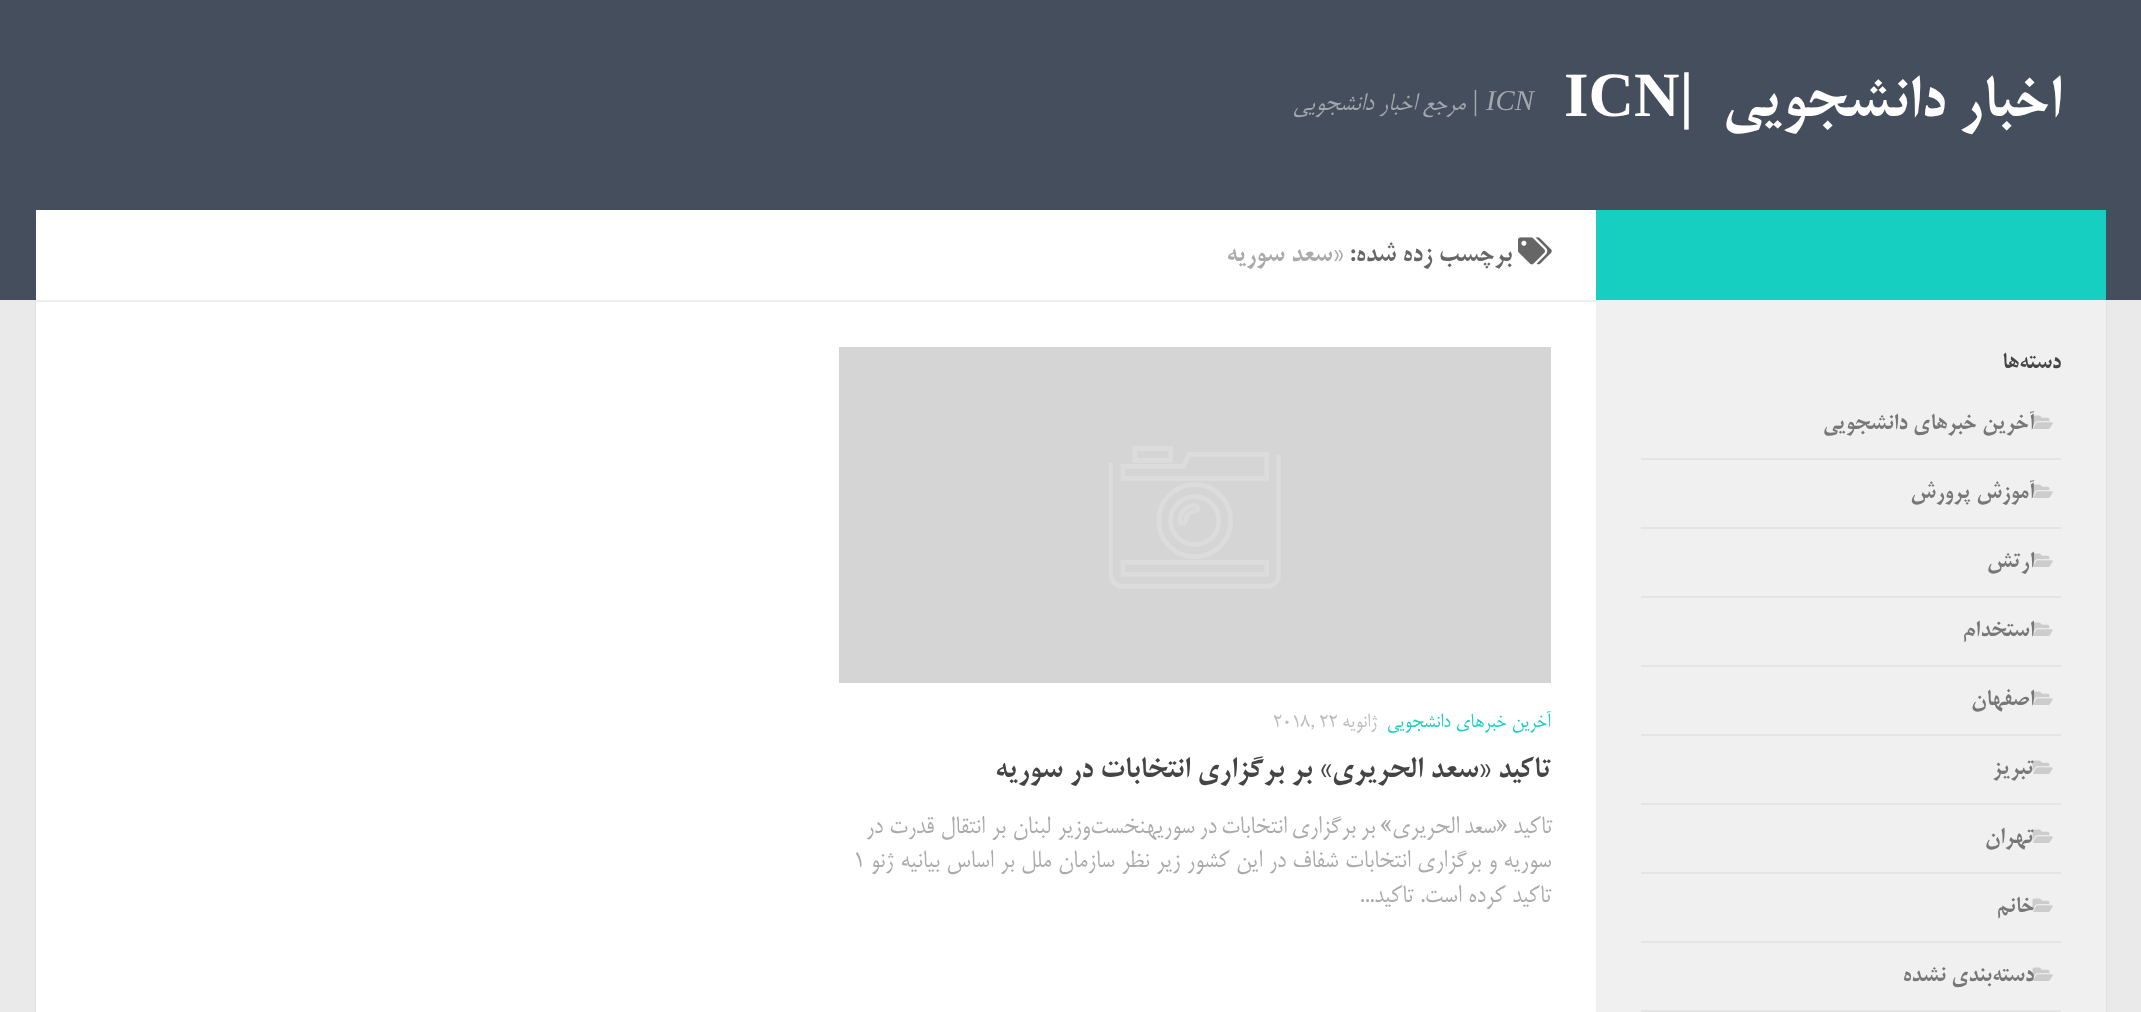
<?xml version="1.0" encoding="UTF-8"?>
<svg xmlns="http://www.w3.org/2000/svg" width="2141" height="1012">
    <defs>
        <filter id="blur1" x="-50%" y="-200%" width="200%" height="500%"><feGaussianBlur stdDeviation="1"/></filter>
    </defs>
    <rect width="100%" height="100%" fill="#EAEAEA"/>
    <rect x="36" y="212" width="2070" height="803" fill="#000000" fill-opacity="0.1" filter="url(#blur1)"/>
    <rect x="0" y="0" width="2141" height="300" fill="#454E5C"/>
    <text x="2061" y="116" font-family="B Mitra" font-size="63" font-weight="700" direction="rtl" fill="#FFFFFF">اخبار دانشجویی</text>
    <text x="1564" y="116" font-family="Liberation Serif" font-size="63" font-weight="700" fill="#FFFFFF">ICN|</text>
    <text x="1486" y="110" font-family="Liberation Serif" font-size="28.8" font-style="italic" fill="#A2A7AE">ICN</text>
    <text x="1479" y="110" font-family="Liberation Serif" font-size="28.8" font-style="italic" direction="rtl" fill="#A2A7AE">|</text>
    <text x="1465" y="110" font-family="B Mitra" font-size="28.8" font-style="italic" direction="rtl" fill="#A2A7AE">مرجع اخبار دانشجویی</text>
    <rect x="36" y="210" width="1560" height="802" fill="#FFFFFF"/>
    <rect x="1596" y="300" width="510" height="712" fill="#F0F0F0"/>
    <rect x="1596" y="210" width="510" height="90" fill="#16CFC1"/>
    <text x="2061" y="368" font-family="B Mitra" font-size="24" font-weight="700" direction="rtl" fill="#444444">دسته‌ها</text>
    <rect x="1641" y="458" width="420" height="2" fill="#E4E4E4"/>
    <image x="2032" y="415" width="21" height="14" href="img_01.png"/>
    <text x="2034" y="429" font-family="B Mitra" font-size="24" font-weight="700" direction="rtl" fill="#777777">آخرین خبرهای دانشجویی</text>
    <rect x="1641" y="527" width="420" height="2" fill="#E4E4E4"/>
    <image x="2032" y="484" width="21" height="14" href="img_01.png"/>
    <text x="2034" y="498" font-family="B Mitra" font-size="24" font-weight="700" direction="rtl" fill="#777777">آموزش پرورش</text>
    <rect x="1641" y="596" width="420" height="2" fill="#E4E4E4"/>
    <image x="2032" y="553" width="21" height="14" href="img_01.png"/>
    <text x="2034" y="567" font-family="B Mitra" font-size="24" font-weight="700" direction="rtl" fill="#777777">ارتش</text>
    <rect x="1641" y="665" width="420" height="2" fill="#E4E4E4"/>
    <image x="2032" y="622" width="21" height="14" href="img_01.png"/>
    <text x="2034" y="636" font-family="B Mitra" font-size="24" font-weight="700" direction="rtl" fill="#777777">استخدام</text>
    <rect x="1641" y="734" width="420" height="2" fill="#E4E4E4"/>
    <image x="2032" y="691" width="21" height="14" href="img_01.png"/>
    <text x="2034" y="705" font-family="B Mitra" font-size="24" font-weight="700" direction="rtl" fill="#777777">اصفهان</text>
    <rect x="1641" y="803" width="420" height="2" fill="#E4E4E4"/>
    <image x="2032" y="760" width="21" height="14" href="img_01.png"/>
    <text x="2034" y="774" font-family="B Mitra" font-size="24" font-weight="700" direction="rtl" fill="#777777">تبریز</text>
    <rect x="1641" y="872" width="420" height="2" fill="#E4E4E4"/>
    <image x="2032" y="829" width="21" height="14" href="img_01.png"/>
    <text x="2034" y="843" font-family="B Mitra" font-size="24" font-weight="700" direction="rtl" fill="#777777">تهران</text>
    <rect x="1641" y="941" width="420" height="2" fill="#E4E4E4"/>
    <image x="2032" y="898" width="21" height="14" href="img_01.png"/>
    <text x="2034" y="912" font-family="B Mitra" font-size="24" font-weight="700" direction="rtl" fill="#777777">خانم</text>
    <rect x="1641" y="1010" width="420" height="2" fill="#E4E4E4"/>
    <image x="2032" y="967" width="21" height="14" href="img_01.png"/>
    <text x="2034" y="981" font-family="B Mitra" font-size="24" font-weight="700" direction="rtl" fill="#777777">دسته‌بندی نشده</text>
    <rect x="36" y="300" width="1560" height="2" fill="#EEEEEE"/>
    <image x="1518" y="237" width="34" height="28" href="img_02.png"/>
    <text x="1512" y="261" font-family="B Mitra" font-size="27" font-weight="700" direction="rtl" fill="#666666">برچسب زده شده:</text>
    <text x="1343" y="261" font-family="B Mitra" font-size="27" font-weight="700" direction="rtl" fill="#AAAAAA">«سعد سوریه</text>
    <rect x="839" y="347" width="712" height="336" fill="#D5D5D5"/>
    <image x="1109" y="446" width="172" height="143" href="img_03.png"/>
    <text x="1551" y="727" font-family="B Mitra" font-size="23" direction="rtl" fill="#16CFC1">آخرین خبرهای دانشجویی</text>
    <text x="1377" y="727" font-family="B Mitra" font-size="23" direction="rtl" fill="#BBBBBB">ژانویه</text>
    <text x="1273" y="727" font-family="B Mitra" font-size="23" fill="#BBBBBB">2018, 22</text>
    <text x="1551" y="777" font-family="B Mitra" font-size="31.25" font-weight="700" direction="rtl" fill="#444444">تاکید «سعد الحریری» بر برگزاری انتخابات در سوریه</text>
    <text x="1552" y="833" word-spacing="-1.75" font-family="B Mitra" font-size="28.8" direction="rtl" fill="#AAAAAA">تاکید «سعد الحریری» بر برگزاری انتخابات در سوریهنخست</text>
    <text x="1090" y="833" font-family="B Mitra" font-size="28.8" direction="rtl" fill="#AAAAAA">وزیر لبنان بر انتقال قدرت در</text>
    <text x="1551" y="867" font-family="B Mitra" font-size="28.8" direction="rtl" fill="#AAAAAA">سوریه و برگزاری انتخابات شفاف در این کشور زیر نظر سازمان ملل بر اساس بیانیه ژنو</text>
    <text x="853" y="867" font-family="B Mitra" font-size="28.8" fill="#AAAAAA">۱</text>
    <text x="1551" y="902" font-family="B Mitra" font-size="28.8" direction="rtl" fill="#AAAAAA">تاکید کرده است. تاکید...</text>
</svg>
